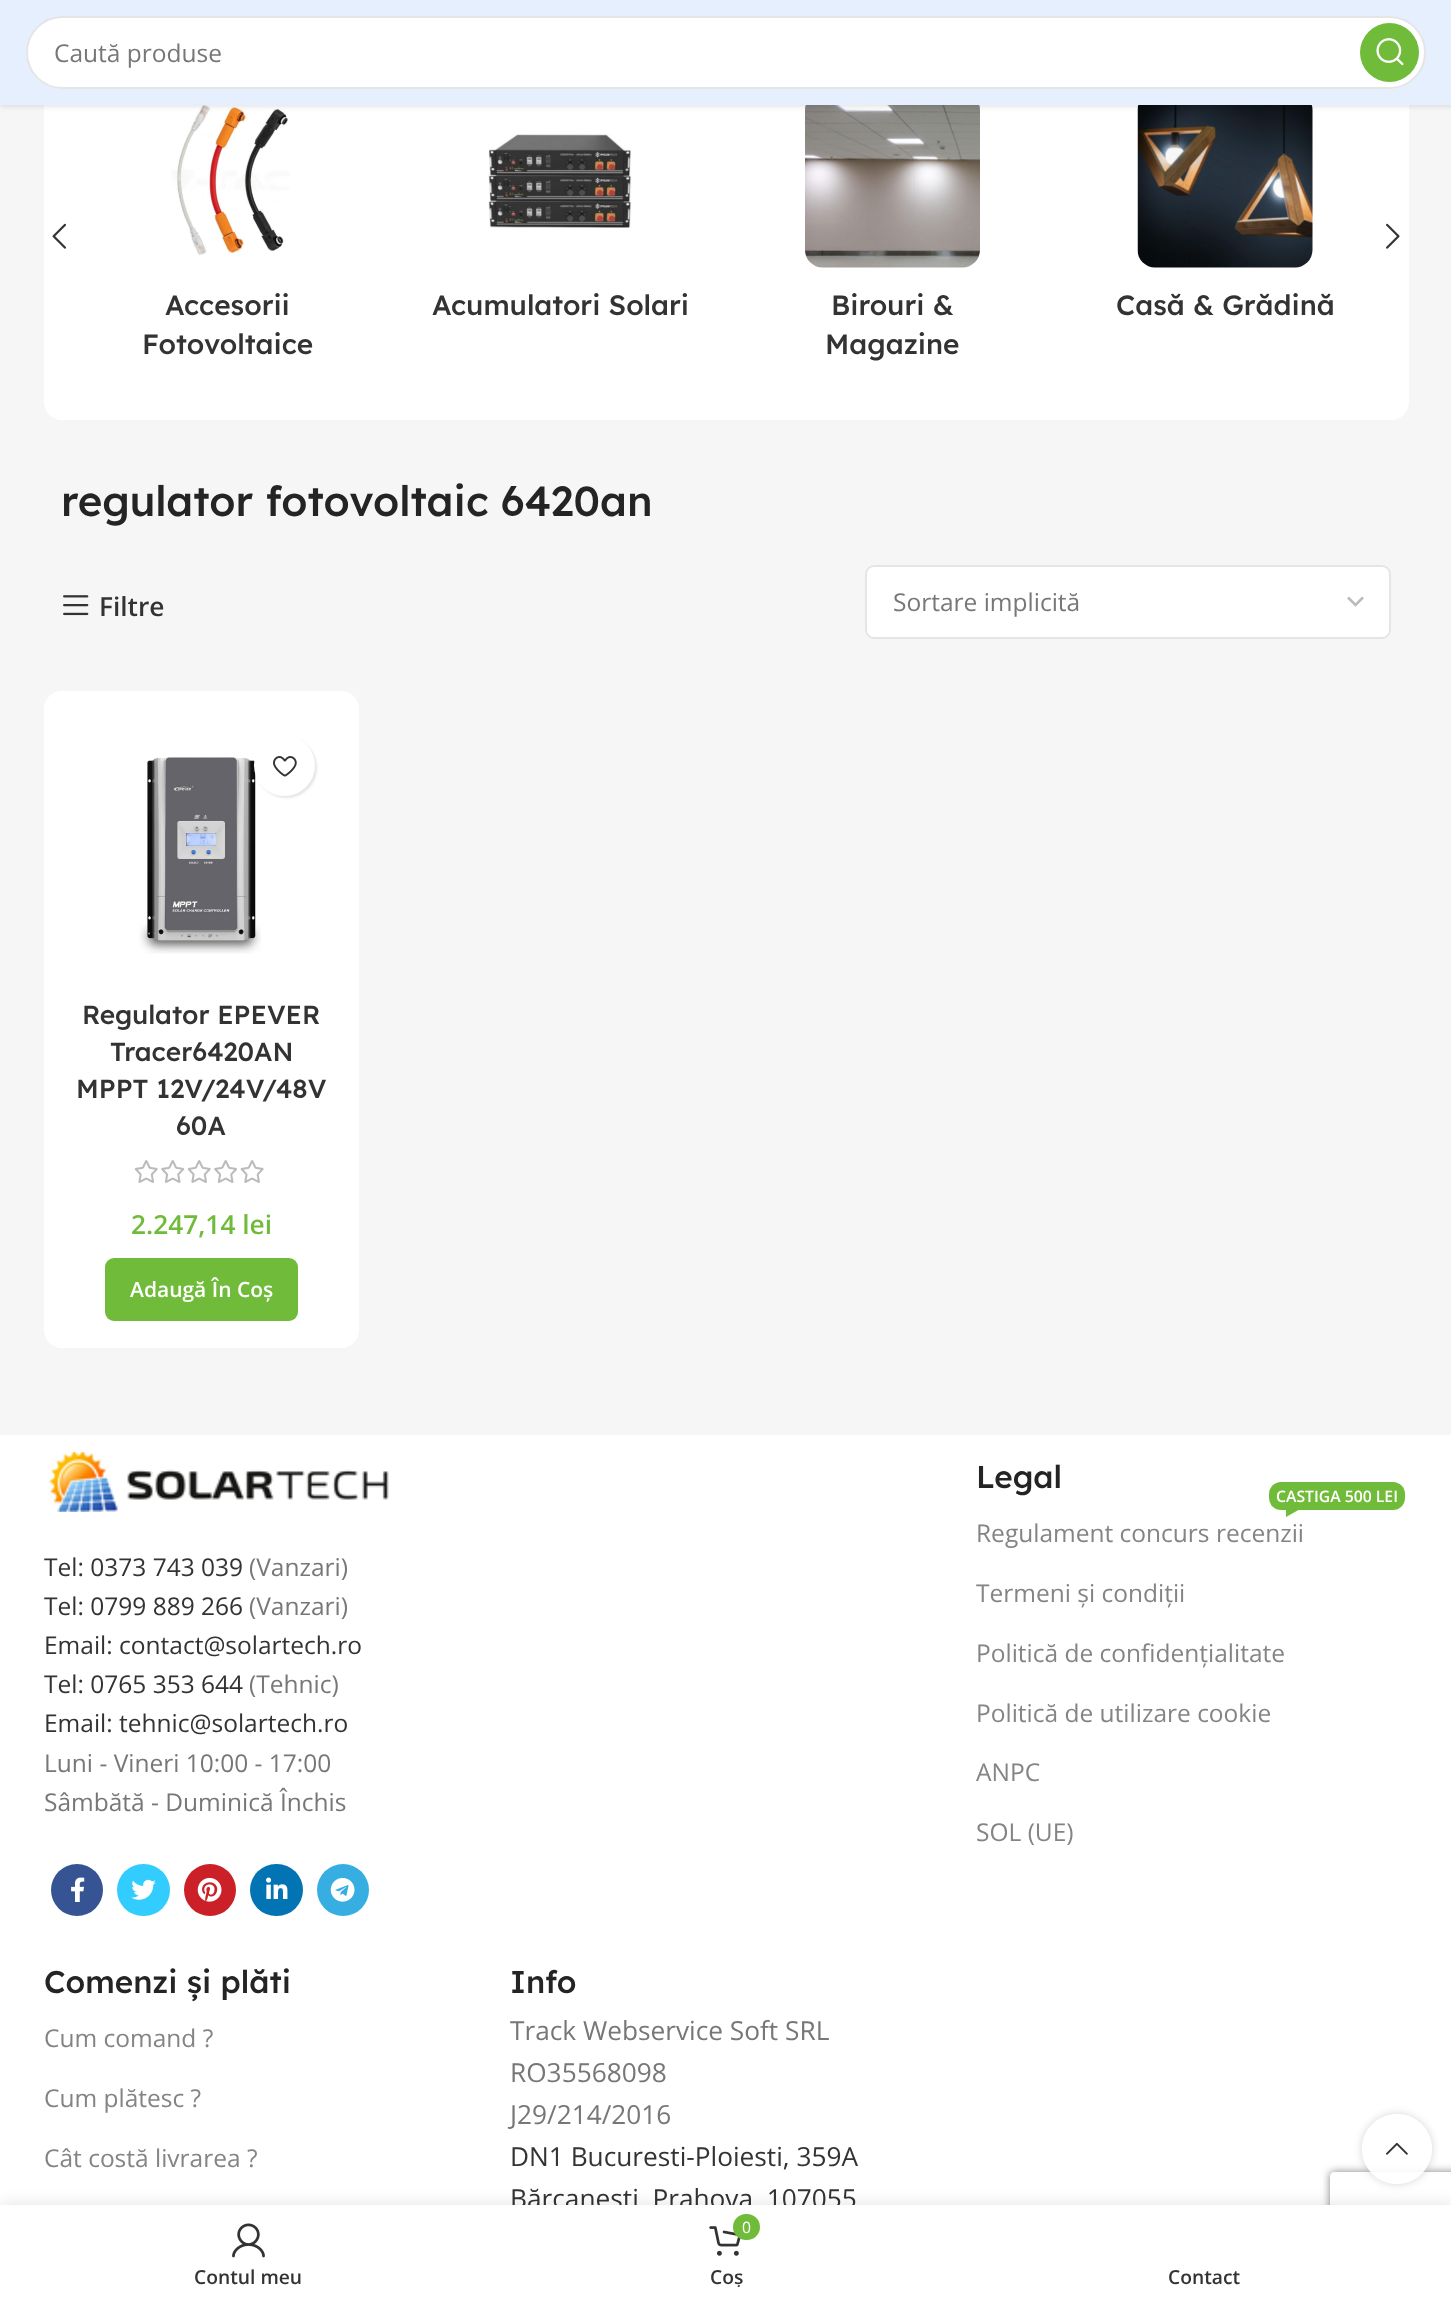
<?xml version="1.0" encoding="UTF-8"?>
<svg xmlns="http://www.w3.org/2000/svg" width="1451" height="2300">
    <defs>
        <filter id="blur1" x="-50%" y="-200%" width="200%" height="500%"><feGaussianBlur stdDeviation="2.5"/></filter>
        <filter id="blur2" x="-50%" y="-200%" width="200%" height="500%"><feGaussianBlur stdDeviation="1"/></filter>
        <clipPath id="clip1"><path d="M 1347 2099 H 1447 V 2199 H 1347 Z M 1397 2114 C 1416.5 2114 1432 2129.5 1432 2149 C 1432 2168.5 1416.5 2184 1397 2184 C 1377.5 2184 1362 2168.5 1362 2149 C 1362 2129.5 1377.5 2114 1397 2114 Z" clip-rule="evenodd"/></clipPath>
        <filter id="blur3" x="-50%" y="-200%" width="200%" height="500%"><feGaussianBlur stdDeviation="4.5"/></filter>
        <clipPath id="clip2"><path d="M 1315 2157 H 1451 V 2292 H 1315 Z M 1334 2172 H 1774 C 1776 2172 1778 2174 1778 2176 V 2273 C 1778 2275 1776 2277 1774 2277 H 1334 C 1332 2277 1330 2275 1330 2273 V 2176 C 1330 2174 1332 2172 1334 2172 Z" clip-rule="evenodd"/></clipPath>
        <filter id="blur4" x="-50%" y="-200%" width="200%" height="500%"><feGaussianBlur stdDeviation="8"/></filter>
        <clipPath id="clip3"><rect x="504" y="2265" width="445" height="22"/></clipPath>
    </defs>
    <rect width="100%" height="100%" fill="#FFFFFF"/>
    <rect x="0" y="105" width="1451" height="1330" fill="#F6F6F6"/>
    <rect x="44" y="54" width="1365" height="366" rx="18" fill="#FFFFFF"/>
    <image x="171" y="105" width="119" height="150" href="img_04.png"/>
    <image x="805" y="105" width="175" height="163" href="img_06.png"/>
    <image x="1137" y="105" width="176" height="163" href="img_07.png"/>
    <rect x="0" y="2" width="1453" height="105" fill="#000000" fill-opacity="0.1" filter="url(#blur1)"/>
    <rect x="0" y="0" width="1451" height="105" fill="#E6EFFD"/>
    <rect x="26" y="16" width="1400" height="73" rx="36.5" fill="#FFFFFF"/>
    <rect x="27" y="17" width="1398" height="71" rx="35.5" fill="none" stroke="#000000" stroke-opacity="0.1" stroke-width="2"/>
    <text x="54" y="62" font-family="Open Sans" font-size="24.5" fill="#777777">Caută produse</text>
    <circle cx="1389.5" cy="52.5" r="29.5" fill="#70BC3A"/>
    <image x="1376" y="38" width="28" height="28" href="img_01.png"/>
    <image x="52" y="223" width="14" height="26" href="img_02.png"/>
    <image x="1386" y="223" width="14" height="26" href="img_03.png"/>
    <text x="165" y="315" font-family="Lexend Deca" font-size="28" font-weight="500" fill="#333333">Accesorii</text>
    <text x="142" y="354" font-family="Lexend Deca" font-size="28" font-weight="500" fill="#333333">Fotovoltaice</text>
    <image x="488" y="134" width="144" height="94" href="img_05.png"/>
    <text x="432" y="315" font-family="Lexend Deca" font-size="28" font-weight="500" fill="#333333">Acumulatori Solari</text>
    <text x="831" y="315" font-family="Lexend Deca" font-size="28" font-weight="500" fill="#333333">Birouri &amp;</text>
    <text x="825" y="354" font-family="Lexend Deca" font-size="28" font-weight="500" fill="#333333">Magazine</text>
    <text x="1116" y="315" font-family="Lexend Deca" font-size="28" font-weight="500" fill="#333333">Casă &amp; Grădină</text>
    <text x="61" y="516" font-family="Lexend Deca" font-size="42" font-weight="500" fill="#242424">regulator fotovoltaic 6420an</text>
    <image x="63" y="595" width="26" height="21" href="img_08.png"/>
    <text x="99" y="616" font-family="Open Sans" font-size="26.25" font-weight="600" fill="#333333">Filtre</text>
    <rect x="865" y="565" width="526" height="74" rx="9" fill="#FFFFFF"/>
    <path d="M 1348 597.5 L 1355.5 605 L 1363 597.5" fill="none" stroke="#BBBBBB" stroke-width="2.5"/>
    <rect x="866" y="566" width="524" height="72" rx="8" fill="none" stroke="#000000" stroke-opacity="0.1" stroke-width="2"/>
    <text x="893" y="611" font-family="Open Sans" font-size="24.5" fill="#777777">Sortare implicită</text>
    <rect x="44" y="691" width="315" height="657" rx="18" fill="#FFFFFF"/>
    <image x="139" y="757" width="122" height="197" href="img_09.png"/>
    <rect x="256" y="737" width="61" height="61" rx="30.5" fill="#000000" fill-opacity="0.1" filter="url(#blur2)"/>
    <circle cx="284.5" cy="765.5" r="30.5" fill="#FFFFFF"/>
    <image x="273" y="756" width="24" height="21" href="img_10.png"/>
    <text x="82" y="1024" font-family="Lexend Deca" font-size="26.25" font-weight="500" fill="#333333">Regulator EPEVER</text>
    <text x="110" y="1061" font-family="Lexend Deca" font-size="26.25" font-weight="500" fill="#333333">Tracer6420AN</text>
    <text x="76" y="1098" font-family="Lexend Deca" font-size="26.25" font-weight="500" fill="#333333">MPPT 12V/24V/48V</text>
    <text x="176" y="1135" font-family="Lexend Deca" font-size="26.25" font-weight="500" fill="#333333">60A</text>
    <image x="134" y="1160" width="130" height="23" href="img_11.png"/>
    <text x="131" y="1234" font-family="Open Sans" font-size="26.25" font-weight="600" fill="#70BC3A">2.247,14 lei</text>
    <rect x="105" y="1258" width="193" height="63" rx="9" fill="#70BC3A"/>
    <text x="130" y="1297" font-family="Open Sans" font-size="21" font-weight="600" fill="#FFFFFF">Adaugă În Coș</text>
    <image x="48" y="1452" width="341" height="60" href="img_12.png"/>
    <text x="44" y="1576" font-family="Open Sans" font-size="24.5" fill="#333333">Tel: 0373 743 039</text>
    <text x="249" y="1576" font-family="Open Sans" font-size="24.5" fill="#777777">(Vanzari)</text>
    <text x="44" y="1615" font-family="Open Sans" font-size="24.5" fill="#333333">Tel: 0799 889 266</text>
    <text x="249" y="1615" font-family="Open Sans" font-size="24.5" fill="#777777">(Vanzari)</text>
    <text font-family="Open Sans" font-size="24.5" fill="#333333">
        <tspan x="44" y="1654">Email: contact@solartech.ro</tspan>
        <tspan x="44" y="1693">Tel: 0765 353 644</tspan>
    </text>
    <text x="249" y="1693" font-family="Open Sans" font-size="24.5" fill="#777777">(Tehnic)</text>
    <text x="44" y="1732" font-family="Open Sans" font-size="24.5" fill="#333333">Email: tehnic@solartech.ro</text>
    <text font-family="Open Sans" font-size="24.5" fill="#777777">
        <tspan x="44" y="1772">Luni - Vineri 10:00 - 17:00</tspan>
        <tspan x="44" y="1811">Sâmbătă - Duminică Închis</tspan>
    </text>
    <circle cx="77" cy="1890" r="26" fill="#365493"/>
    <image x="71" y="1877" width="14" height="25" href="img_13.png"/>
    <rect x="117" y="1864" width="53" height="52" rx="26" fill="#33CCFF"/>
    <image x="131" y="1879" width="25" height="21" href="img_14.png"/>
    <circle cx="210" cy="1890" r="26" fill="#CB2027"/>
    <image x="197" y="1877" width="25" height="25" href="img_15.png"/>
    <rect x="250" y="1864" width="53" height="52" rx="26" fill="#0274B3"/>
    <image x="266" y="1877" width="22" height="22" href="img_16.png"/>
    <circle cx="343" cy="1890" r="26" fill="#37AEE2"/>
    <image x="330" y="1877" width="25" height="25" href="img_17.png"/>
    <text x="976" y="1488" font-family="Lexend Deca" font-size="31.5" font-weight="500" fill="#242424">Legal</text>
    <rect x="1269" y="1482" width="136" height="28" rx="12" fill="#70BC3A"/>
    <text x="1276" y="1502" font-family="Open Sans" font-size="15.75" font-weight="600" fill="#FFFFFF">CASTIGA 500 LEI</text>
    <path d="M 1286 1510 H 1298.5 L 1286 1517 Z" fill="#70BC3A"/>
    <text x="976" y="1542" font-family="Open Sans" font-size="24.5" fill="#848484">Regulament concurs recenzii</text>
    <text x="976" y="1602" font-family="Open Sans" font-size="24.5" fill="#848484">Termeni și condiții</text>
    <text x="976" y="1662" font-family="Open Sans" font-size="24.5" fill="#848484">Politică de confidențialitate</text>
    <text x="976" y="1722" font-family="Open Sans" font-size="24.5" fill="#848484">Politică de utilizare cookie</text>
    <text x="976" y="1781" font-family="Open Sans" font-size="24.5" fill="#848484">ANPC</text>
    <text x="976" y="1841" font-family="Open Sans" font-size="24.5" fill="#848484">SOL (UE)</text>
    <text x="44" y="1993" font-family="Lexend Deca" font-size="31.5" font-weight="500" fill="#242424">Comenzi și plăti</text>
    <text x="44" y="2047" font-family="Open Sans" font-size="24.5" fill="#848484">Cum comand ?</text>
    <text x="44" y="2107" font-family="Open Sans" font-size="24.5" fill="#848484">Cum plătesc ?</text>
    <text x="44" y="2167" font-family="Open Sans" font-size="24.5" fill="#848484">Cât costă livrarea ?</text>
    <text x="510" y="1993" font-family="Lexend Deca" font-size="31.5" font-weight="500" fill="#242424">Info</text>
    <text font-family="Open Sans" font-size="26.25" fill="#777777">
        <tspan x="510" y="2040">Track Webservice Soft SRL</tspan>
        <tspan x="510" y="2082">RO35568098</tspan>
        <tspan x="510" y="2124">J29/214/2016</tspan>
    </text>
    <text font-family="Open Sans" font-size="26.25" fill="#333333">
        <tspan x="510" y="2166">DN1 Bucuresti-Ploiesti, 359A</tspan>
        <tspan x="510" y="2208">Bărcanești, Prahova, 107055</tspan>
    </text>
    <g clip-path="url(#clip1)">
        <rect x="1362" y="2114" width="70" height="70" rx="35" fill="#000000" fill-opacity="0.17" filter="url(#blur3)"/>
    </g>
    <g clip-path="url(#clip2)">
        <rect x="1330" y="2172" width="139" height="105" rx="4" fill="#808080" filter="url(#blur3)"/>
    </g>
    <circle cx="1397" cy="2149" r="35" fill="#FFFFFF" fill-opacity="0.9"/>
    <image x="1386" y="2142" width="22" height="13" href="img_18.png"/>
    <rect x="0" y="2205" width="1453" height="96" fill="#000000" fill-opacity="0.12" filter="url(#blur4)"/>
    <rect x="0" y="2205" width="1451" height="95" fill="#FFFFFF"/>
    <image x="232" y="2223" width="33" height="35" href="img_19.png"/>
    <text x="194" y="2284" font-family="Open Sans" font-size="19.25" font-weight="600" fill="#333333">Contul meu</text>
    <image x="709" y="2226" width="32" height="30" href="img_20.png"/>
    <rect x="733" y="2214" width="27" height="26" rx="13" fill="#70BC3A"/>
    <text x="742" y="2233" font-family="Open Sans" font-size="15.75" fill="#FFFFFF">0</text>
    <g clip-path="url(#clip3)">
        <text x="710" y="2284" font-family="Open Sans" font-size="19.25" font-weight="600" fill="#333333">Coș</text>
    </g>
    <text x="1168" y="2284" font-family="Open Sans" font-size="19.25" font-weight="600" fill="#333333">Contact</text>
</svg>
